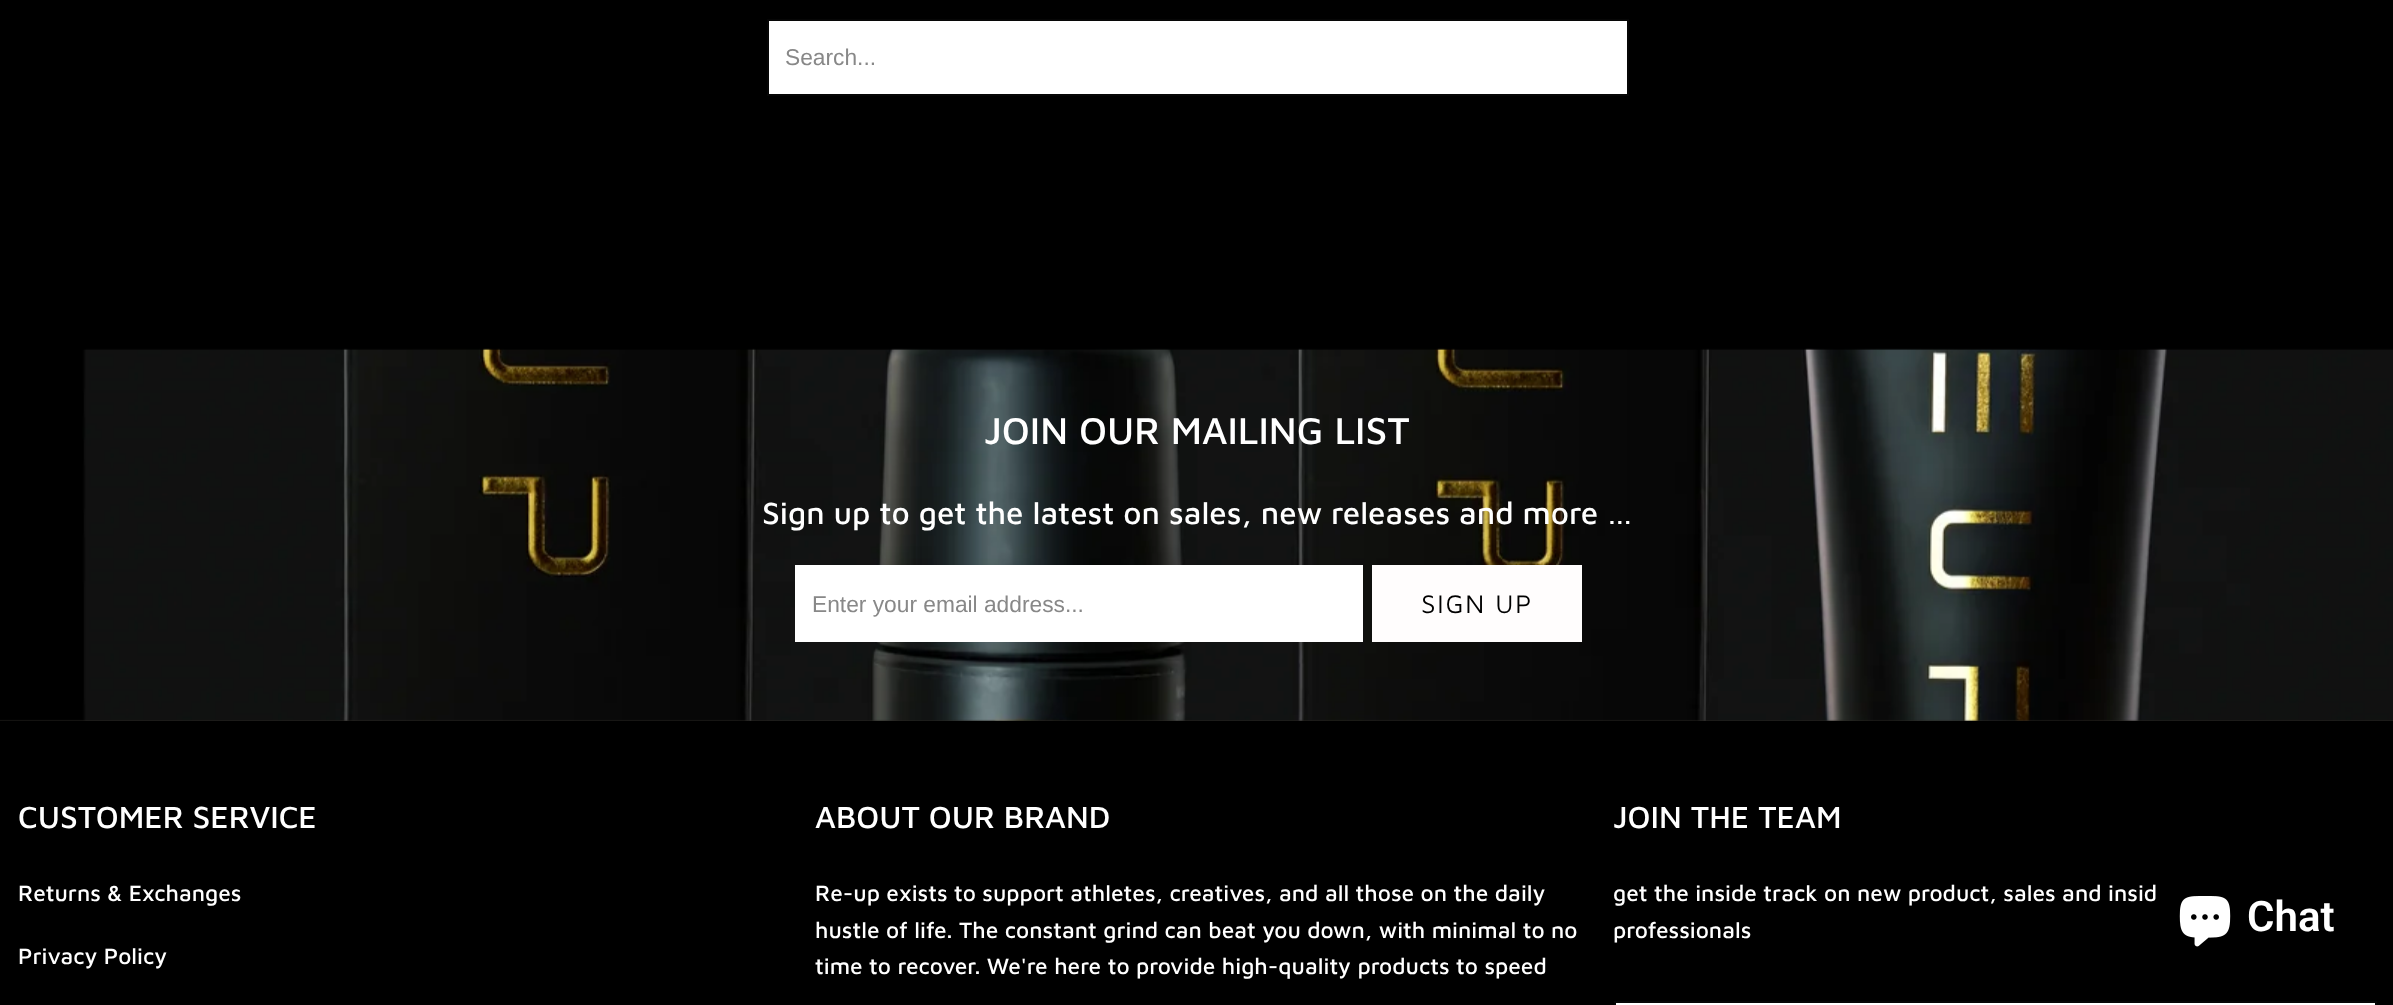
<?xml version="1.0" encoding="UTF-8"?>
<svg xmlns="http://www.w3.org/2000/svg" width="2393" height="1005">
    <rect width="100%" height="100%" fill="#000000"/>
    <rect x="768" y="20" width="860" height="75" fill="#FFFFFF" stroke="#060606" stroke-width="2"/>
    <text x="785" y="65" font-family="Liberation Sans" font-size="22.75" fill="#888888">Search...</text>
    <rect x="0" y="719" width="2393" height="2" fill="#2D2A26"/>
    <image x="0" y="348" width="2393" height="373" href="img_01.png"/>
    <text x="984" y="444" font-family="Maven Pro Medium" font-size="38.5" font-weight="500" fill="#FFFFFF">JOIN OUR MAILING LIST</text>
    <text x="762" y="524" font-family="Maven Pro Medium" font-size="31.5" font-weight="500" fill="#FFFFFF">Sign up to get the latest on sales, new releases and more …</text>
    <rect x="795" y="565" width="568" height="77" fill="#FFFFFF"/>
    <text x="812" y="612" font-family="Liberation Sans" font-size="22.75" fill="#888888">Enter your email address...</text>
    <rect x="1372" y="565" width="210" height="77" fill="#FFFDFD"/>
    <text x="1421" y="613" font-family="Maven Pro" font-size="26.25" letter-spacing="1.75" fill="#000000">SIGN UP</text>
    <text x="18" y="828" font-family="Maven Pro Medium" font-size="31.5" font-weight="500" fill="#FFFFFF">CUSTOMER SERVICE</text>
    <text x="18" y="901" font-family="Maven Pro Medium" font-size="22.75" font-weight="500" fill="#FFFFFF">Returns &amp; Exchanges</text>
    <text x="18" y="964" font-family="Maven Pro Medium" font-size="22.75" font-weight="500" fill="#FFFFFF">Privacy Policy</text>
    <text x="815" y="828" font-family="Maven Pro Medium" font-size="31.5" font-weight="500" fill="#FFFFFF">ABOUT OUR BRAND</text>
    <text font-family="Maven Pro Medium" font-size="22.75" font-weight="500" fill="#FFFFFF">
        <tspan x="815" y="901">Re-up exists to support athletes, creatives, and all those on the daily</tspan>
        <tspan x="815" y="938">hustle of life. The constant grind can beat you down, with minimal to no</tspan>
        <tspan x="815" y="974">time to recover. We're here to provide high-quality products to speed</tspan>
    </text>
    <text x="1613" y="828" font-family="Maven Pro Medium" font-size="31.5" font-weight="500" fill="#FFFFFF">JOIN THE TEAM</text>
    <text font-family="Maven Pro Medium" font-size="22.75" font-weight="500" fill="#FFFFFF">
        <tspan x="1613" y="901">get the inside track on new product, sales and insid</tspan>
        <tspan x="1613" y="938">professionals</tspan>
    </text>
    <rect x="1615" y="1002" width="761" height="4" fill="#FFFFFF" stroke="#060606" stroke-width="2"/>
    <image x="2179" y="896" width="52" height="51" href="img_02.png"/>
    <text x="2247" y="931" font-family="Roboto" font-size="42" font-weight="600" fill="#FFFFFF">Chat</text>
</svg>
